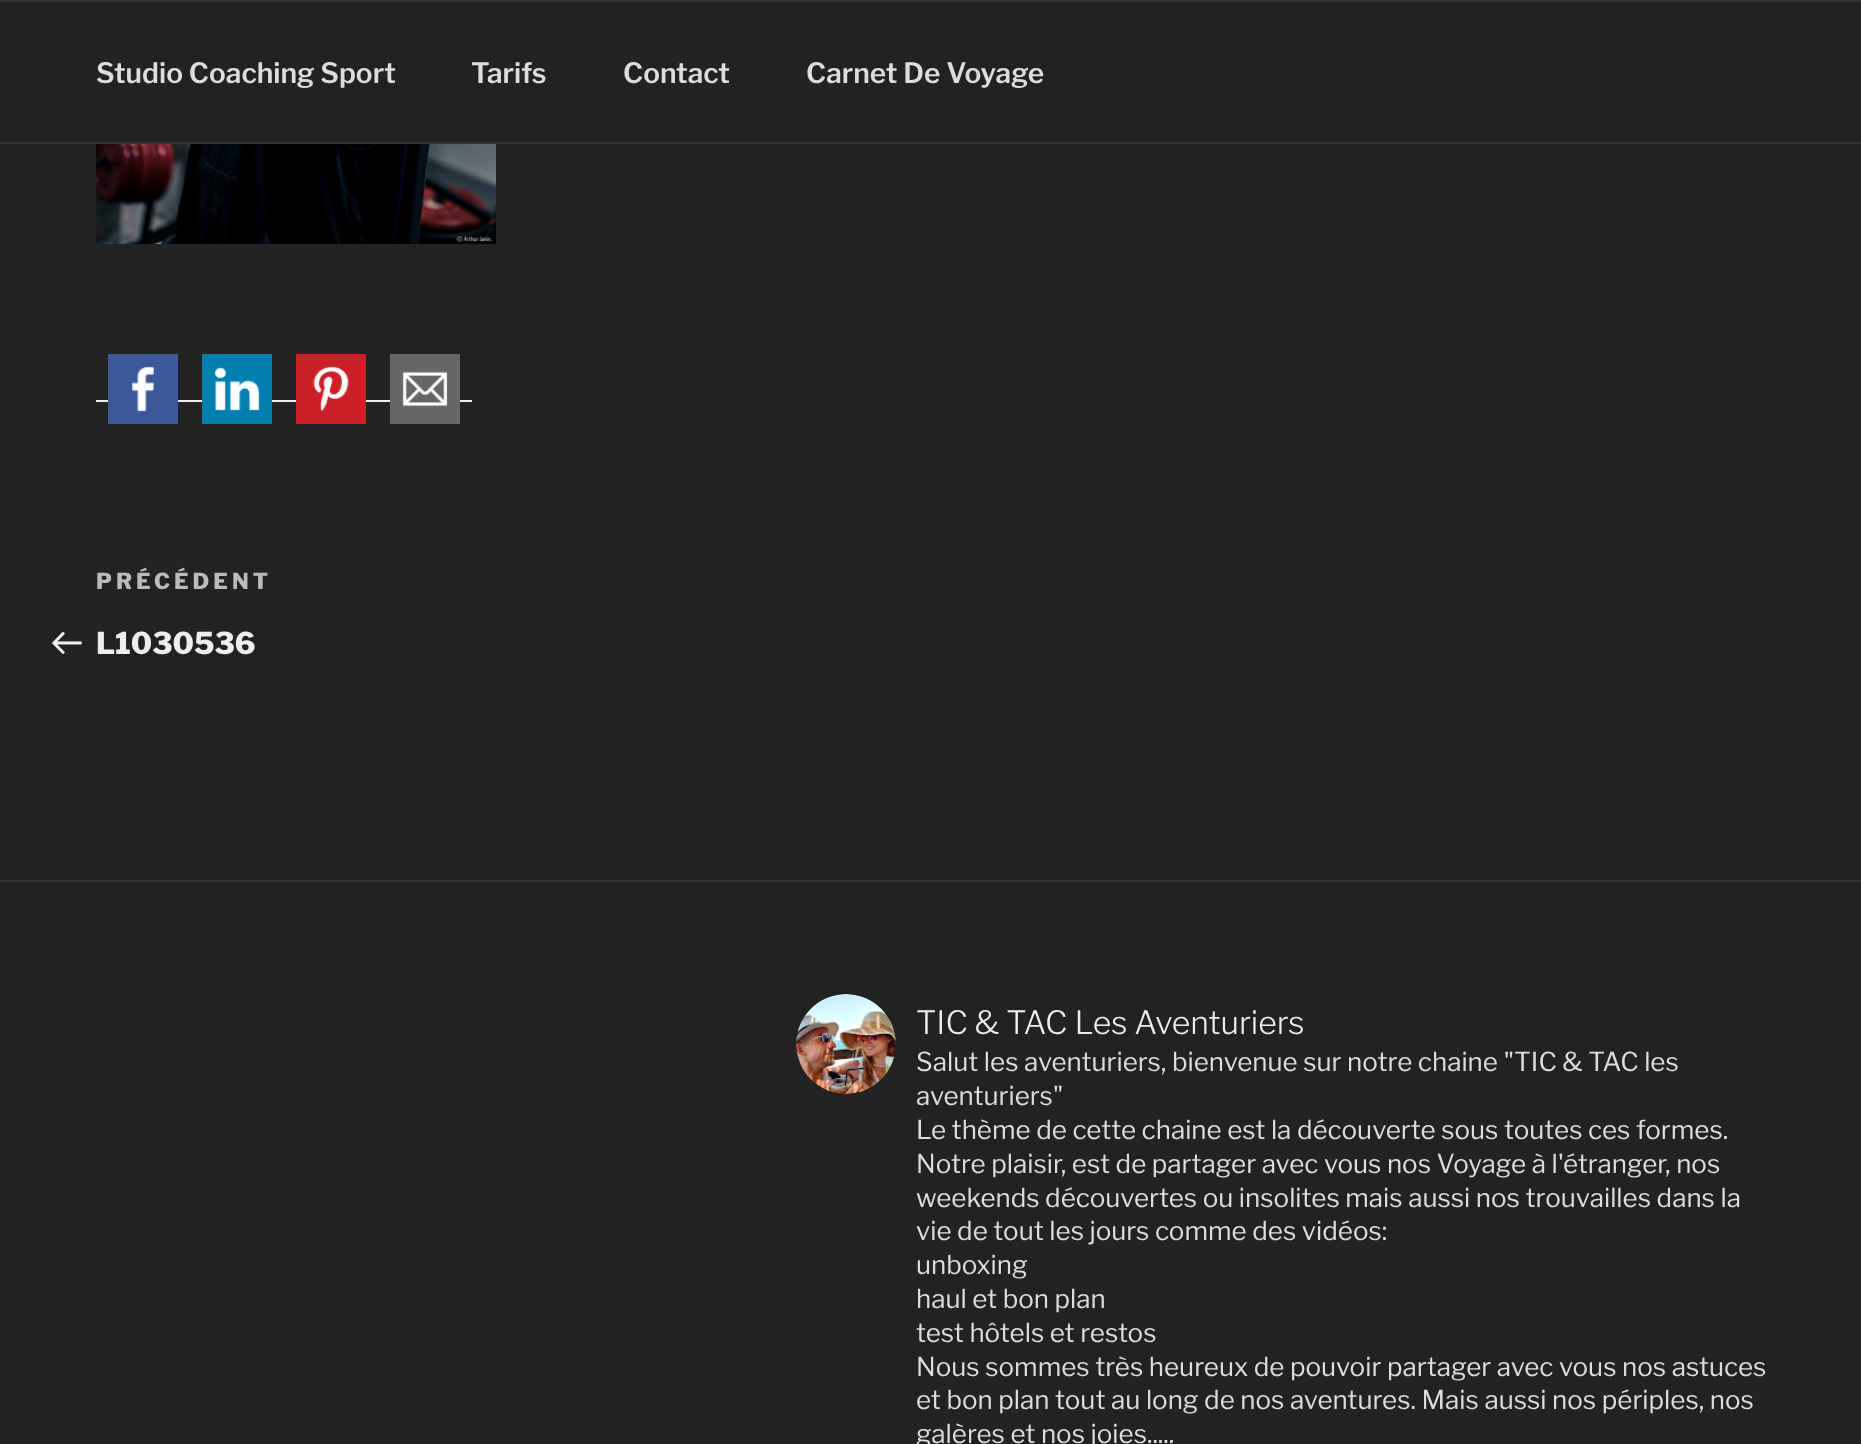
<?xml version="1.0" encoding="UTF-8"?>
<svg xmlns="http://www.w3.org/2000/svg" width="1861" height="1444">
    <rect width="100%" height="100%" fill="#222222"/>
    <rect x="0" y="0" width="1861" height="2" fill="#333333"/>
    <rect x="0" y="142" width="1861" height="2" fill="#333333"/>
    <text x="96" y="83" font-family="Libre Franklin" font-size="28" font-weight="600" fill="#DDDDDD">Studio Coaching Sport</text>
    <text x="471" y="83" font-family="Libre Franklin" font-size="28" font-weight="600" fill="#DDDDDD">Tarifs</text>
    <text x="623" y="83" font-family="Libre Franklin" font-size="28" font-weight="600" fill="#DDDDDD">Contact</text>
    <text x="806" y="83" font-family="Libre Franklin" font-size="28" font-weight="600" fill="#DDDDDD">Carnet De Voyage</text>
    <image x="96" y="144" width="400" height="100" href="img_01.png"/>
    <rect x="96" y="400" width="376" height="2" fill="#F0F0F0"/>
    <image x="108" y="354" width="70" height="70" href="img_02.png"/>
    <image x="202" y="354" width="70" height="70" href="img_03.png"/>
    <image x="296" y="354" width="70" height="70" href="img_04.png"/>
    <image x="390" y="354" width="70" height="70" href="img_05.png"/>
    <text x="96" y="589" font-family="Libre Franklin" font-size="22" font-weight="800" letter-spacing="4" fill="#BBBBBB">PRÉCÉDENT</text>
    <image x="52" y="631" width="30" height="24" href="img_06.png"/>
    <text x="96" y="654" font-family="Libre Franklin" font-size="30" font-weight="800" fill="#EEEEEE">L1030536</text>
    <rect x="0" y="880" width="1861" height="2" fill="#333333"/>
    <image x="796" y="994" width="100" height="100" href="img_07.png"/>
    <text x="916" y="1034" font-family="Libre Franklin" font-size="32" font-weight="300" fill="#EEEEEE">TIC &amp; TAC Les Aventuriers</text>
    <text font-family="Libre Franklin" font-size="26" fill="#DDDDDD">
        <tspan x="916" y="1071">Salut les aventuriers, bienvenue sur notre chaine "TIC &amp; TAC les</tspan>
        <tspan x="916" y="1105">aventuriers"</tspan>
        <tspan x="916" y="1139">Le thème de cette chaine est la découverte sous toutes ces formes.</tspan>
        <tspan x="916" y="1173">Notre plaisir, est de partager avec vous nos Voyage à l'étranger, nos</tspan>
        <tspan x="916" y="1207">weekends découvertes ou insolites mais aussi nos trouvailles dans la</tspan>
        <tspan x="916" y="1240">vie de tout les jours comme des vidéos:</tspan>
        <tspan x="916" y="1274">unboxing</tspan>
        <tspan x="916" y="1308">haul et bon plan</tspan>
        <tspan x="916" y="1342">test hôtels et restos</tspan>
        <tspan x="916" y="1376">Nous sommes très heureux de pouvoir partager avec vous nos astuces</tspan>
        <tspan x="916" y="1409">et bon plan tout au long de nos aventures. Mais aussi nos périples, nos</tspan>
        <tspan x="916" y="1443">galères et nos joies.....</tspan>
    </text>
</svg>
